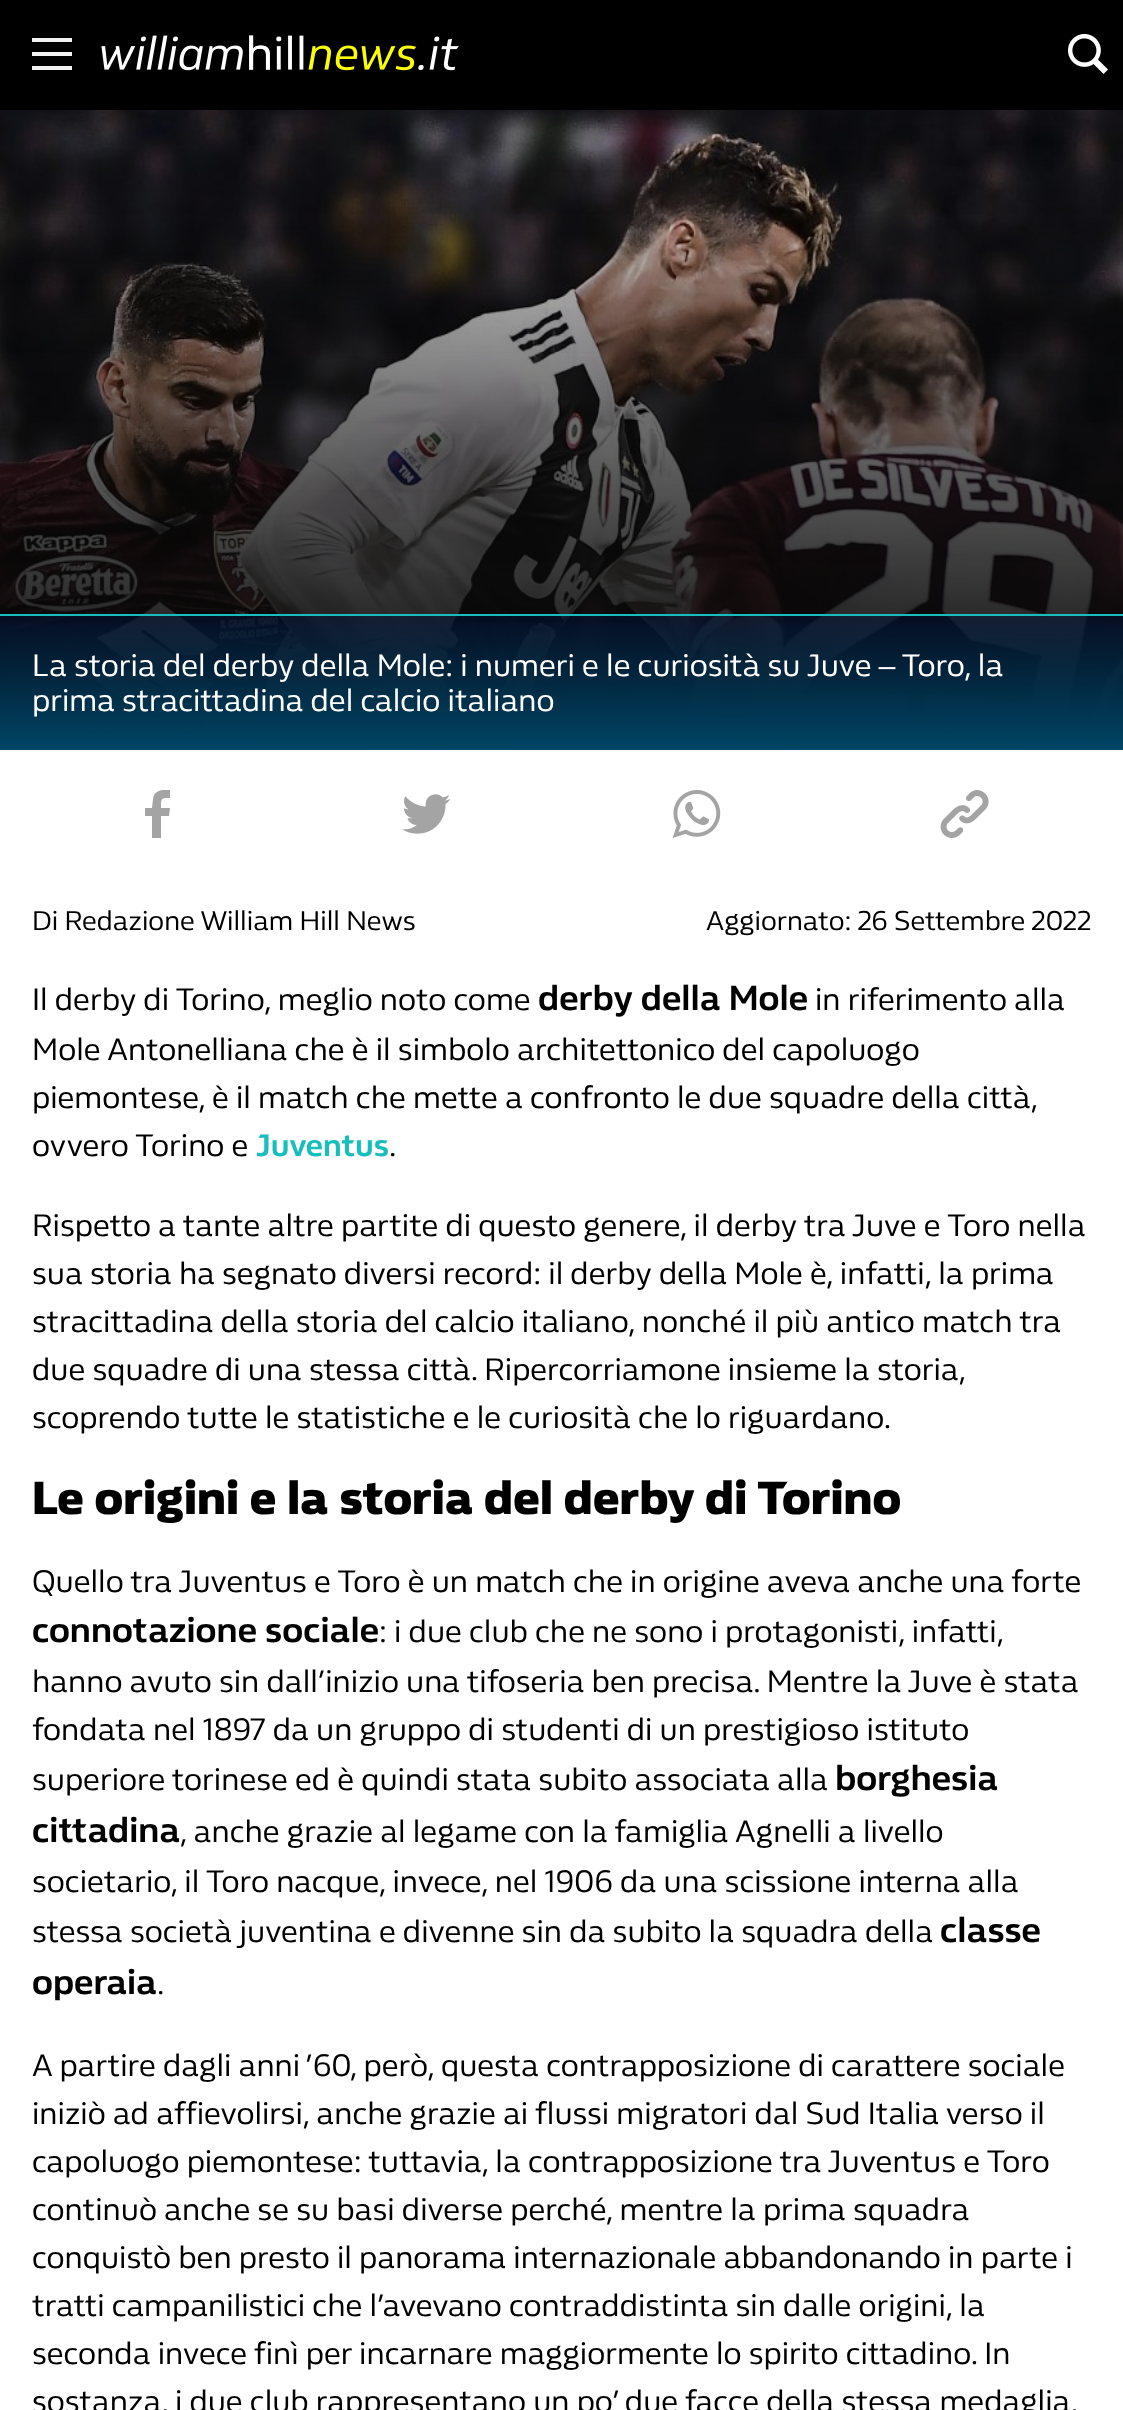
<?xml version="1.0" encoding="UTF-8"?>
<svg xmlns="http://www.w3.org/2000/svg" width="1123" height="2410">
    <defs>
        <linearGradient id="g1" gradientUnits="userSpaceOnUse" x1="562" y1="616" x2="562" y2="750"><stop offset="0" stop-color="#000000" stop-opacity="0"/><stop offset="1" stop-color="#000000"/></linearGradient>
        <linearGradient id="g2" gradientUnits="userSpaceOnUse" x1="562" y1="750" x2="562" y2="616"><stop offset="0" stop-color="#00ADFF" stop-opacity="0.4"/><stop offset="1" stop-color="#00ADFF" stop-opacity="0"/></linearGradient>
        <clipPath id="clip1"><rect x="134" y="790" width="50" height="48"/></clipPath>
    </defs>
    <rect width="100%" height="100%" fill="#FFFFFF"/>
    <rect x="0" y="0" width="1123" height="110" fill="#000000"/>
    <path d="M 32 38 H 72 V 42 H 32 Z M 32 52 H 72 V 56 H 32 Z M 32 66 H 72 V 70 H 32 Z" fill="#F2F2F2" fill-rule="evenodd"/>
    <image x="101" y="35" width="358" height="36" href="img_01.png"/>
    <image x="1068" y="34" width="40" height="40" href="img_02.png"/>
    <image x="0" y="110" width="1123" height="639" href="img_03.png"/>
    <rect x="0" y="616" width="1123" height="133" fill="#00143C" fill-opacity="0.5"/>
    <rect x="0" y="623" width="1123" height="127" fill="url(#g1)"/>
    <rect x="0" y="623" width="1123" height="127" fill="url(#g2)"/>
    <rect x="0" y="614" width="1123" height="2" fill="#17BEBB"/>
    <text font-family="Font" font-size="32" fill="#FFFFFF">
        <tspan x="32" y="676">La storia del derby della Mole: i numeri e le curiosità su Juve – Toro, la</tspan>
        <tspan x="32" y="711">prima stracittadina del calcio italiano</tspan>
    </text>
    <g clip-path="url(#clip1)">
        <path d="M 170 790 V 798 C 161 798 161 798 161 808 H 170 L 169 816 H 161 V 838 H 152 V 816 H 145 V 808 H 152 L 153 799 C 154 790 163 789 170 790 Z" fill="#A4A4A4"/>
    </g>
    <image x="402" y="794" width="49" height="40" href="img_04.png"/>
    <image x="672" y="790" width="49" height="48" href="img_05.png"/>
    <image x="940" y="790" width="49" height="48" href="img_06.png"/>
    <text x="32" y="930" font-family="Font" font-size="28" fill="#000000">Di Redazione William Hill News</text>
    <text x="706" y="930" font-family="Font" font-size="28" fill="#000000">Aggiornato: 26 Settembre 2022</text>
    <text x="32" y="1010" font-family="Font" font-size="32" fill="#000000">Il derby di Torino, meglio noto come</text>
    <text x="538" y="1010" font-family="Font" font-size="36" font-weight="700" fill="#000000">derby della Mole</text>
    <text x="815" y="1010" font-family="Font" font-size="32" fill="#000000">in riferimento alla</text>
    <text font-family="Font" font-size="32" fill="#000000">
        <tspan x="32" y="1060">Mole Antonelliana che è il simbolo architettonico del capoluogo</tspan>
        <tspan x="32" y="1108">piemontese, è il match che mette a confronto le due squadre della città,</tspan>
        <tspan x="32" y="1156">ovvero Torino e</tspan>
    </text>
    <text x="256" y="1156" font-family="Font" font-size="32" font-weight="700" fill="#17BEBB">Juventus</text>
    <text x="389" y="1156" font-family="Font" font-size="32" fill="#000000">.</text>
    <text font-family="Font" font-size="32" fill="#000000">
        <tspan x="32" y="1236">Rispetto a tante altre partite di questo genere, il derby tra Juve e Toro nella</tspan>
        <tspan x="32" y="1284">sua storia ha segnato diversi record: il derby della Mole è, infatti, la prima</tspan>
        <tspan x="32" y="1332">stracittadina della storia del calcio italiano, nonché il più antico match tra</tspan>
        <tspan x="32" y="1380">due squadre di una stessa città. Ripercorriamone insieme la storia,</tspan>
        <tspan x="32" y="1428">scoprendo tutte le statistiche e le curiosità che lo riguardano.</tspan>
    </text>
    <text x="32" y="1514" font-family="Font" font-size="48" font-weight="900" fill="#000000">Le origini e la storia del derby di Torino</text>
    <text x="32" y="1592" font-family="Font" font-size="32" fill="#000000">Quello tra Juventus e Toro è un match che in origine aveva anche una forte</text>
    <text x="32" y="1642" font-family="Font" font-size="36" font-weight="700" fill="#000000">connotazione sociale</text>
    <text x="379" y="1642" font-family="Font" font-size="32" fill="#000000">: i due club che ne sono i protagonisti, infatti,</text>
    <text font-family="Font" font-size="32" fill="#000000">
        <tspan x="32" y="1692">hanno avuto sin dall’inizio una tifoseria ben precisa. Mentre la Juve è stata</tspan>
        <tspan x="32" y="1740">fondata nel 1897 da un gruppo di studenti di un prestigioso istituto</tspan>
        <tspan x="32" y="1790">superiore torinese ed è quindi stata subito associata alla</tspan>
    </text>
    <text x="835" y="1790" font-family="Font" font-size="36" font-weight="700" fill="#000000">borghesia</text>
    <text x="32" y="1842" font-family="Font" font-size="36" font-weight="700" fill="#000000">cittadina</text>
    <text x="180" y="1842" font-family="Font" font-size="32" fill="#000000">, anche grazie al legame con la famiglia Agnelli a livello</text>
    <text font-family="Font" font-size="32" fill="#000000">
        <tspan x="32" y="1892">societario, il Toro nacque, invece, nel 1906 da una scissione interna alla</tspan>
        <tspan x="32" y="1942">stessa società juventina e divenne sin da subito la squadra della</tspan>
    </text>
    <text x="940" y="1942" font-family="Font" font-size="36" font-weight="700" fill="#000000">classe</text>
    <text x="32" y="1994" font-family="Font" font-size="36" font-weight="700" fill="#000000">operaia</text>
    <text x="157" y="1994" font-family="Font" font-size="32" fill="#000000">.</text>
    <text font-family="Font" font-size="32" fill="#000000">
        <tspan x="32" y="2076">A partire dagli anni ’60, però, questa contrapposizione di carattere sociale</tspan>
        <tspan x="32" y="2124">iniziò ad affievolirsi, anche grazie ai flussi migratori dal Sud Italia verso il</tspan>
        <tspan x="32" y="2172">capoluogo piemontese: tuttavia, la contrapposizione tra Juventus e Toro</tspan>
        <tspan x="32" y="2220">continuò anche se su basi diverse perché, mentre la prima squadra</tspan>
        <tspan x="32" y="2268">conquistò ben presto il panorama internazionale abbandonando in parte i</tspan>
        <tspan x="32" y="2316">tratti campanilistici che l’avevano contraddistinta sin dalle origini, la</tspan>
        <tspan x="32" y="2364">seconda invece finì per incarnare maggiormente lo spirito cittadino. In</tspan>
        <tspan x="32" y="2412">sostanza, i due club rappresentano un po’ due facce della stessa medaglia,</tspan>
    </text>
</svg>
